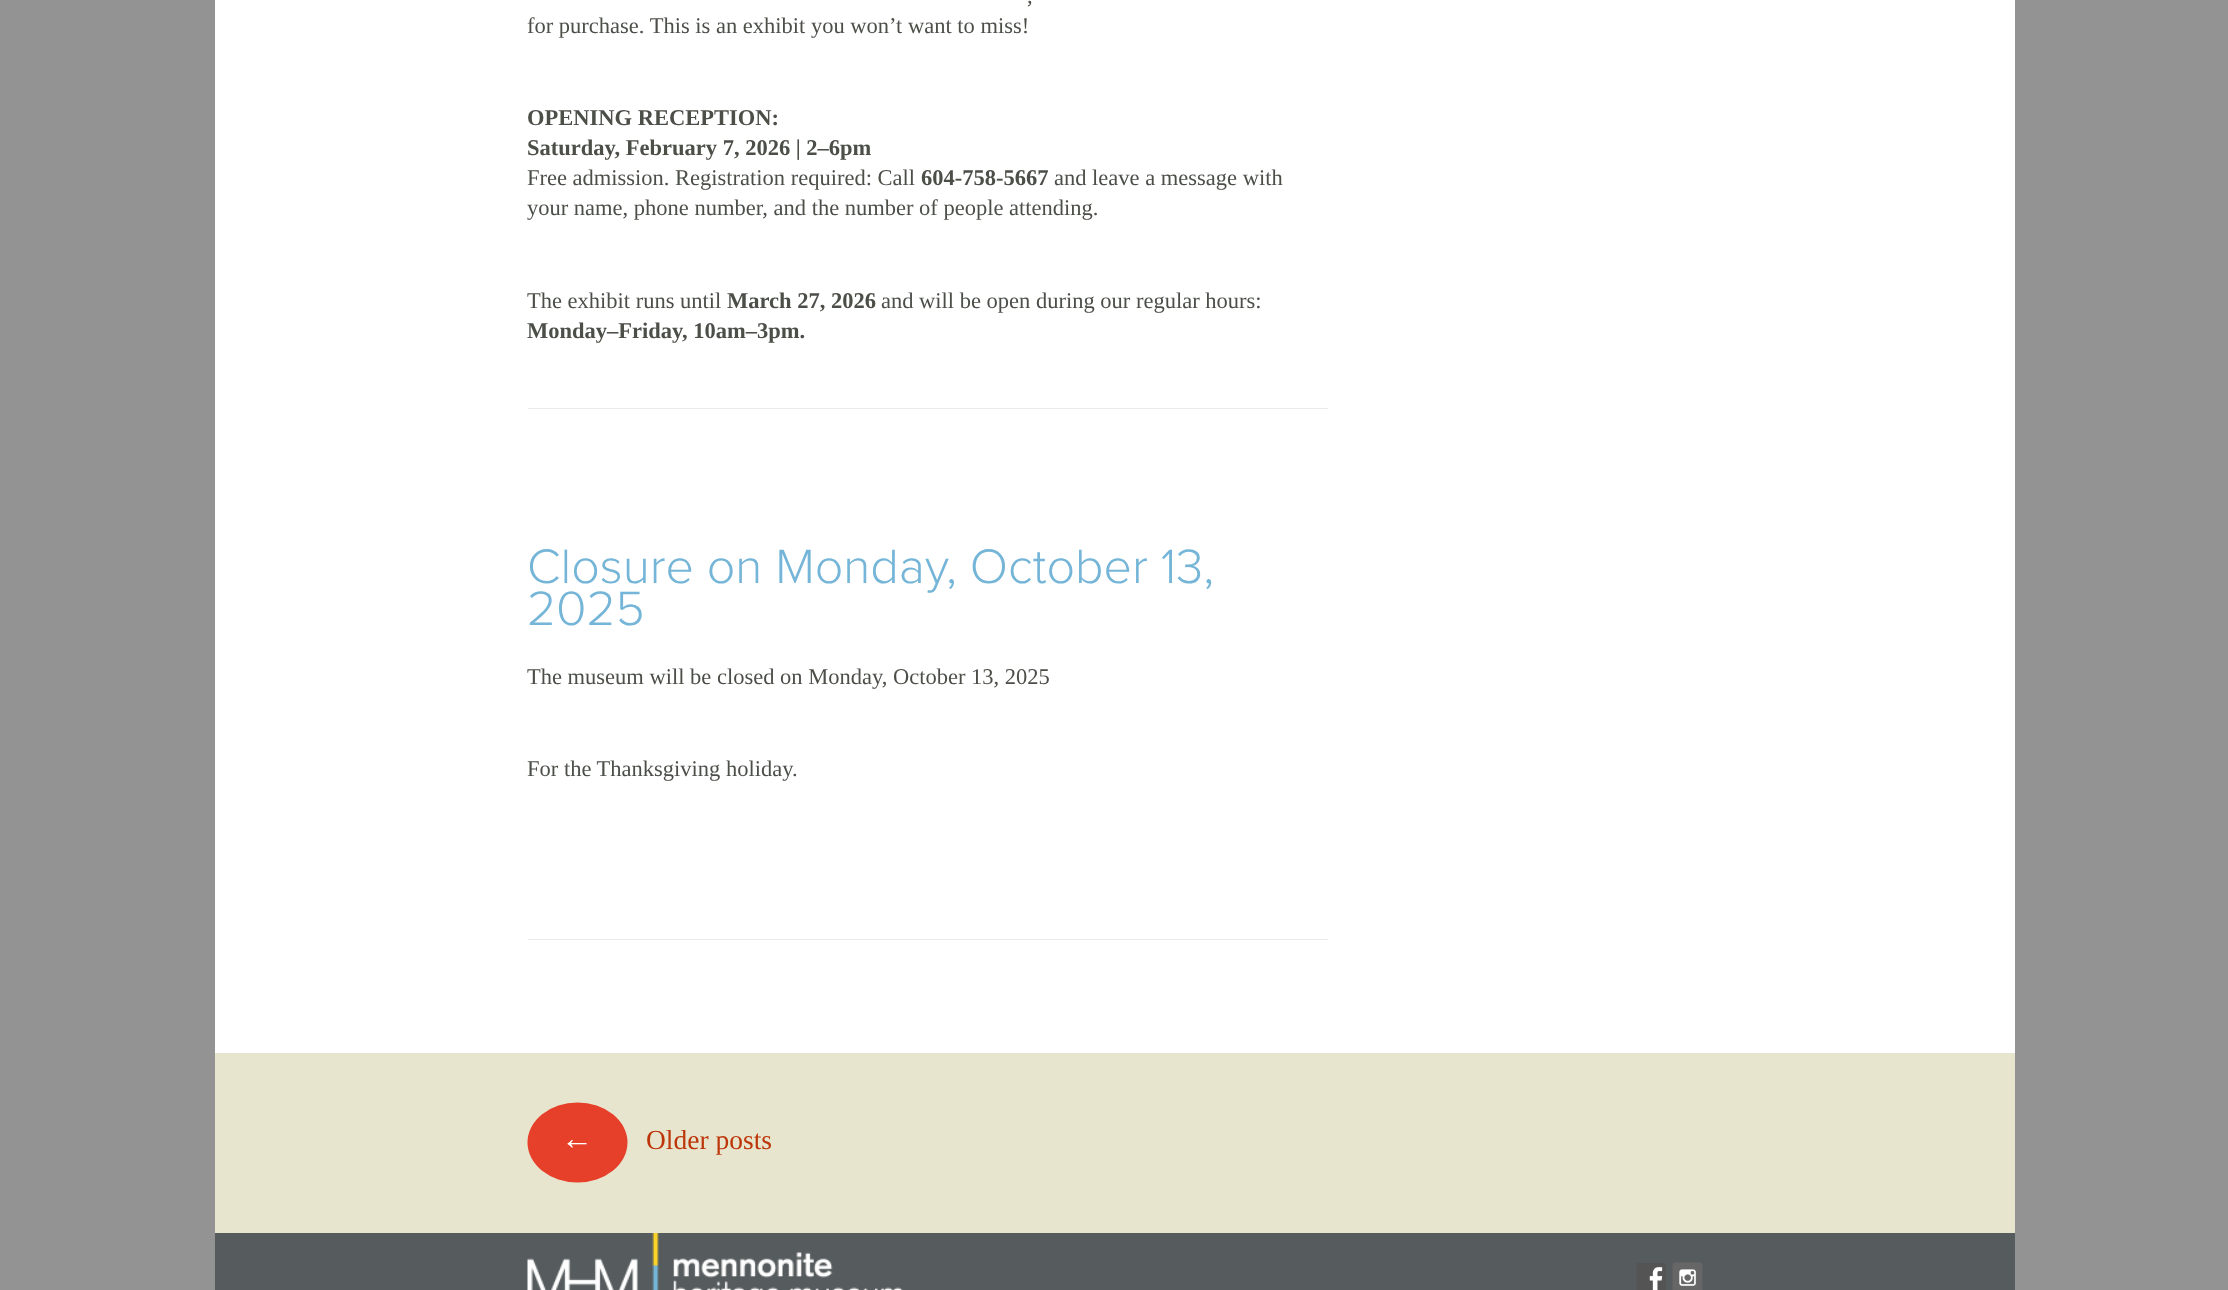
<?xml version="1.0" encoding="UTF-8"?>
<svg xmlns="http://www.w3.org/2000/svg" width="2228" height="1290">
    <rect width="100%" height="100%" fill="#939393"/>
    <rect x="215" y="0" width="1800" height="1053" fill="#FFFFFF"/>
    <text x="1027" y="3" font-family="Liberation Serif" font-size="22.5" fill="#4B4F48">,</text>
    <text x="527" y="33" font-family="Liberation Serif" font-size="22.5" fill="#4B4F48">for purchase. This is an exhibit you won’t want to miss!</text>
    <text font-family="Liberation Serif" font-size="22.5" font-weight="700" fill="#4B4F48">
        <tspan x="527" y="125">OPENING RECEPTION:</tspan>
        <tspan x="527" y="155">Saturday, February 7, 2026 | 2–6pm</tspan>
    </text>
    <text x="527" y="185" font-family="Liberation Serif" font-size="22.5" fill="#4B4F48">Free admission. Registration required: Call</text>
    <text x="921" y="185" font-family="Liberation Serif" font-size="22.5" font-weight="700" fill="#4B4F48">604-758-5667</text>
    <text x="1054" y="185" font-family="Liberation Serif" font-size="22.5" fill="#4B4F48">and leave a message with</text>
    <text x="527" y="215" font-family="Liberation Serif" font-size="22.5" fill="#4B4F48">your name, phone number, and the number of people attending.</text>
    <text x="527" y="308" font-family="Liberation Serif" font-size="22.5" fill="#4B4F48">The exhibit runs until</text>
    <text x="727" y="308" font-family="Liberation Serif" font-size="22.5" font-weight="700" fill="#4B4F48">March 27, 2026</text>
    <text x="881" y="308" font-family="Liberation Serif" font-size="22.5" fill="#4B4F48">and will be open during our regular hours:</text>
    <text x="527" y="338" font-family="Liberation Serif" font-size="22.5" font-weight="700" fill="#4B4F48">Monday–Friday, 10am–3pm.</text>
    <rect x="528" y="408" width="800" height="1" fill="#EBEBEB"/>
    <text font-family="Proxima Nova" font-size="50" font-weight="300" fill="#75B5D7">
        <tspan x="527" y="583">Closure on Monday, October 13,</tspan>
        <tspan x="527" y="625">2025</tspan>
    </text>
    <text x="527" y="684" font-family="Liberation Serif" font-size="22.5" fill="#4B4F48">The museum will be closed on Monday, October 13, 2025</text>
    <text x="527" y="776" font-family="Liberation Serif" font-size="22.5" fill="#4B4F48">For the Thanksgiving holiday.</text>
    <rect x="528" y="939" width="800" height="1" fill="#EBEBEB"/>
    <rect x="215" y="1053" width="1800" height="180" fill="#E8E5CE"/>
    <ellipse cx="577.5" cy="1142.5" rx="50" ry="40" fill="#E63F2A"/>
    <text x="561" y="1149" font-family="Liberation Serif" font-size="32" fill="#FFFFFF">←</text>
    <text x="646" y="1149" font-family="Liberation Serif" font-size="27.5" fill="#BC360A">Older posts</text>
    <rect x="215" y="1233" width="1800" height="57" fill="#565C5E"/>
    <image x="527" y="1233" width="376" height="57" href="img_01.png"/>
    <image x="1636" y="1263" width="30" height="27" href="img_02.png"/>
    <image x="1672" y="1262" width="31" height="28" href="img_03.png"/>
</svg>
